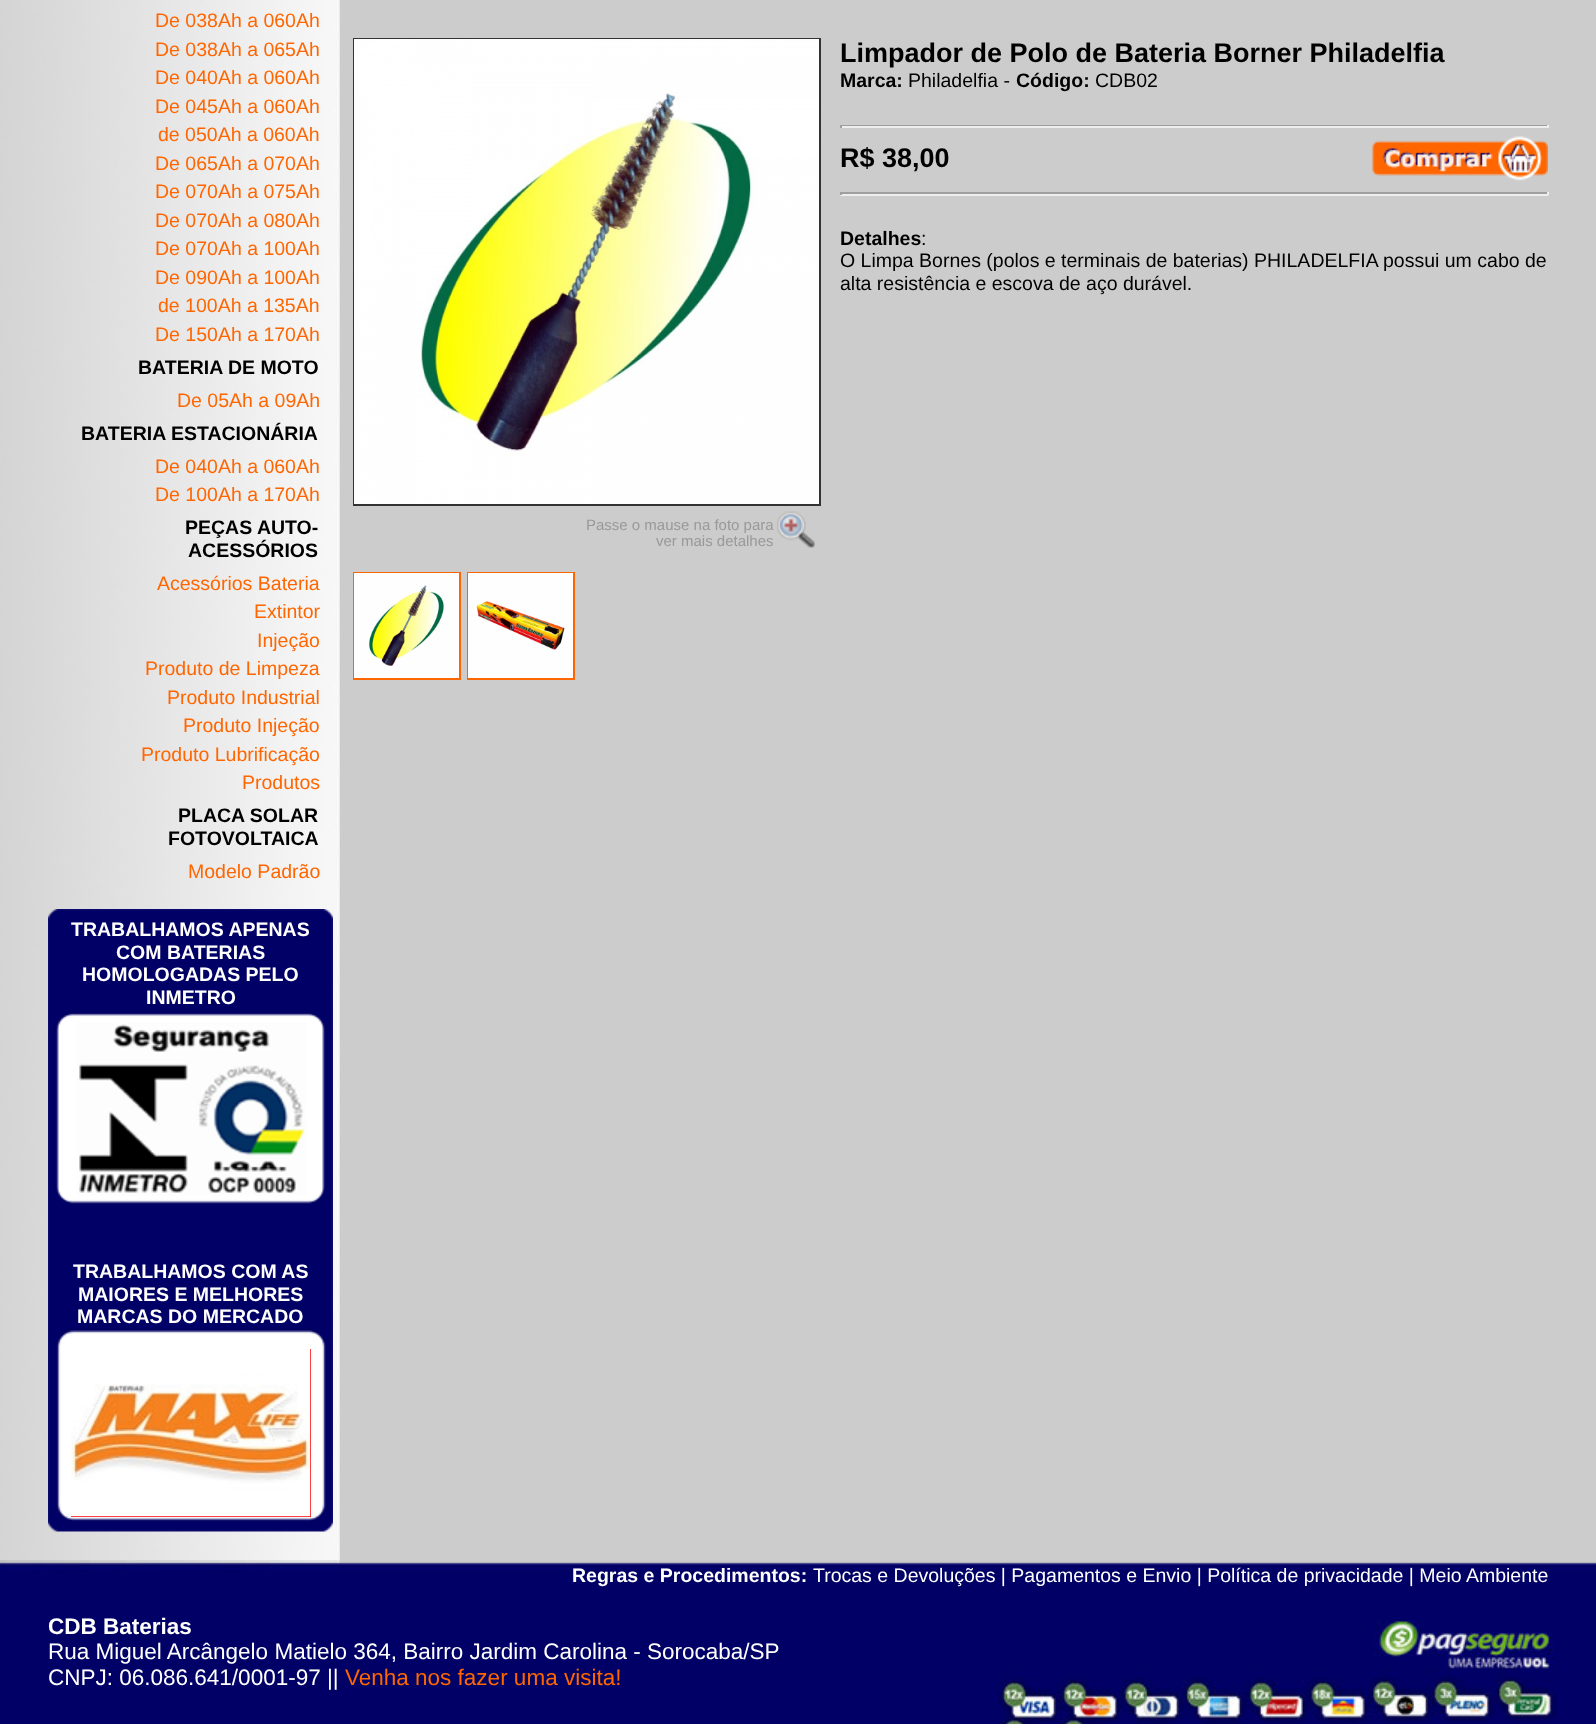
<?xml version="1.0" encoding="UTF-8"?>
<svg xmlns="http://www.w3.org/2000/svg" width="1596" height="1724">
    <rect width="100%" height="100%" fill="#FFFFFF"/>
    <image x="0" y="0" width="1596" height="1560" href="img_01.png"/>
    <text font-family="Liberation Sans" font-size="19.5" fill="#FF6600">
        <tspan x="155" y="27">De 038Ah a 060Ah</tspan>
        <tspan x="155" y="56">De 038Ah a 065Ah</tspan>
        <tspan x="155" y="84">De 040Ah a 060Ah</tspan>
        <tspan x="155" y="113">De 045Ah a 060Ah</tspan>
    </text>
    <text x="158" y="141" font-family="Liberation Sans" font-size="19.5" fill="#FF6600">de 050Ah a 060Ah</text>
    <text font-family="Liberation Sans" font-size="19.5" fill="#FF6600">
        <tspan x="155" y="170">De 065Ah a 070Ah</tspan>
        <tspan x="155" y="198">De 070Ah a 075Ah</tspan>
        <tspan x="155" y="227">De 070Ah a 080Ah</tspan>
        <tspan x="155" y="255">De 070Ah a 100Ah</tspan>
        <tspan x="155" y="284">De 090Ah a 100Ah</tspan>
    </text>
    <text x="158" y="312" font-family="Liberation Sans" font-size="19.5" fill="#FF6600">de 100Ah a 135Ah</text>
    <text x="155" y="341" font-family="Liberation Sans" font-size="19.5" fill="#FF6600">De 150Ah a 170Ah</text>
    <text x="138" y="374" font-family="Liberation Sans" font-size="19.5" font-weight="700" fill="#000000">BATERIA DE MOTO</text>
    <text x="177" y="407" font-family="Liberation Sans" font-size="19.5" fill="#FF6600">De 05Ah a 09Ah</text>
    <text x="81" y="440" font-family="Liberation Sans" font-size="19.5" font-weight="700" fill="#000000">BATERIA ESTACIONÁRIA</text>
    <text font-family="Liberation Sans" font-size="19.5" fill="#FF6600">
        <tspan x="155" y="473">De 040Ah a 060Ah</tspan>
        <tspan x="155" y="501">De 100Ah a 170Ah</tspan>
    </text>
    <text x="185" y="534" font-family="Liberation Sans" font-size="19.5" font-weight="700" fill="#000000">PEÇAS AUTO-</text>
    <text x="188" y="557" font-family="Liberation Sans" font-size="19.5" font-weight="700" fill="#000000">ACESSÓRIOS</text>
    <text x="157" y="590" font-family="Liberation Sans" font-size="19.5" fill="#FF6600">Acessórios Bateria</text>
    <text x="254" y="618" font-family="Liberation Sans" font-size="19.5" fill="#FF6600">Extintor</text>
    <text x="257" y="647" font-family="Liberation Sans" font-size="19.5" fill="#FF6600">Injeção</text>
    <text x="145" y="675" font-family="Liberation Sans" font-size="19.5" fill="#FF6600">Produto de Limpeza</text>
    <text x="167" y="704" font-family="Liberation Sans" font-size="19.5" fill="#FF6600">Produto Industrial</text>
    <text x="183" y="732" font-family="Liberation Sans" font-size="19.5" fill="#FF6600">Produto Injeção</text>
    <text x="141" y="761" font-family="Liberation Sans" font-size="19.5" fill="#FF6600">Produto Lubrificação</text>
    <text x="242" y="789" font-family="Liberation Sans" font-size="19.5" fill="#FF6600">Produtos</text>
    <text x="178" y="822" font-family="Liberation Sans" font-size="19.5" font-weight="700" fill="#000000">PLACA SOLAR</text>
    <text x="168" y="845" font-family="Liberation Sans" font-size="19.5" font-weight="700" fill="#000000">FOTOVOLTAICA</text>
    <text x="188" y="878" font-family="Liberation Sans" font-size="19.5" fill="#FF6600">Modelo Padrão</text>
    <image x="48" y="909" width="285" height="623" href="img_02.png"/>
    <text x="71" y="936" font-family="Liberation Sans" font-size="19.5" font-weight="700" fill="#FFFFFF">TRABALHAMOS APENAS</text>
    <text x="116" y="959" font-family="Liberation Sans" font-size="19.5" font-weight="700" fill="#FFFFFF">COM BATERIAS</text>
    <text x="82" y="981" font-family="Liberation Sans" font-size="19.5" font-weight="700" fill="#FFFFFF">HOMOLOGADAS PELO</text>
    <text x="146" y="1004" font-family="Liberation Sans" font-size="19.5" font-weight="700" fill="#FFFFFF">INMETRO</text>
    <text x="73" y="1278" font-family="Liberation Sans" font-size="19.5" font-weight="700" fill="#FFFFFF">TRABALHAMOS COM AS</text>
    <text x="78" y="1301" font-family="Liberation Sans" font-size="19.5" font-weight="700" fill="#FFFFFF">MAIORES E MELHORES</text>
    <text x="77" y="1323" font-family="Liberation Sans" font-size="19.5" font-weight="700" fill="#FFFFFF">MARCAS DO MERCADO</text>
    <rect x="71" y="1349" width="240" height="168" fill="#FF0000"/>
    <image x="71" y="1349" width="240" height="168" href="img_03.png"/>
    <text x="840" y="62" font-family="Liberation Sans" font-size="27" font-weight="700" fill="#000000">Limpador de Polo de Bateria Borner Philadelfia</text>
    <text x="840" y="87" font-family="Liberation Sans" font-size="19.5" font-weight="700" fill="#000000">Marca:</text>
    <text x="908" y="87" font-family="Liberation Sans" font-size="19.5" fill="#000000">Philadelfia -</text>
    <text x="1016" y="87" font-family="Liberation Sans" font-size="19.5" font-weight="700" fill="#000000">Código:</text>
    <text x="1095" y="87" font-family="Liberation Sans" font-size="19.5" fill="#000000">CDB02</text>
    <rect x="840" y="125" width="708" height="1" fill="#9F9F9F"/>
    <rect x="1547" y="125" width="2" height="3" fill="#EEEEEE"/>
    <rect x="840" y="126" width="708" height="2" fill="#EEEEEE"/>
    <rect x="840" y="125" width="2" height="3" fill="#9F9F9F"/>
    <text x="840" y="167" font-family="Liberation Sans" font-size="27" font-weight="700" fill="#000000">R$ 38,00</text>
    <image x="1372" y="136" width="176" height="45" href="img_04.png"/>
    <rect x="840" y="192" width="708" height="2" fill="#9F9F9F"/>
    <rect x="1547" y="192" width="2" height="3" fill="#EEEEEE"/>
    <rect x="840" y="194" width="708" height="2" fill="#EEEEEE"/>
    <rect x="840" y="192" width="2" height="3" fill="#9F9F9F"/>
    <text x="840" y="245" font-family="Liberation Sans" font-size="19.5" font-weight="700" fill="#000000">Detalhes</text>
    <text x="921" y="245" font-family="Liberation Sans" font-size="19.5" fill="#000000">:</text>
    <text font-family="Liberation Sans" font-size="19.5" fill="#000000">
        <tspan x="840" y="267">O Limpa Bornes (polos e terminais de baterias) PHILADELFIA possui um cabo de</tspan>
        <tspan x="840" y="290">alta resistência e escova de aço durável.</tspan>
    </text>
    <rect x="354" y="39" width="466" height="466" fill="none" stroke="#333333" stroke-width="2"/>
    <image x="354" y="39" width="465" height="465" href="img_05.png"/>
    <text x="586" y="530" font-family="Liberation Sans" font-size="15" fill="#999999">Passe o mause na foto para</text>
    <text x="656" y="546" font-family="Liberation Sans" font-size="15" fill="#999999">ver mais detalhes</text>
    <image x="777" y="511" width="38" height="37" href="img_06.png"/>
    <rect x="354" y="573" width="106" height="106" fill="none" stroke="#FF6600" stroke-width="2"/>
    <rect x="468" y="573" width="106" height="106" fill="none" stroke="#FF6600" stroke-width="2"/>
    <image x="354" y="573" width="105" height="105" href="img_07.png"/>
    <image x="468" y="573" width="105" height="105" href="img_08.png"/>
    <image x="0" y="1560" width="1596" height="164" href="img_09.png"/>
    <text x="572" y="1582" font-family="Liberation Sans" font-size="19.5" font-weight="700" fill="#FFFFFF">Regras e Procedimentos:</text>
    <text x="813" y="1582" font-family="Liberation Sans" font-size="19.5" fill="#FFFFFF">Trocas e Devoluções | Pagamentos e Envio | Política de privacidade | Meio Ambiente</text>
    <text x="48" y="1634" font-family="Liberation Sans" font-size="22.5" font-weight="700" fill="#FFFFFF">CDB Baterias</text>
    <text font-family="Liberation Sans" font-size="22.5" fill="#FFFFFF">
        <tspan x="48" y="1659">Rua Miguel Arcângelo Matielo 364, Bairro Jardim Carolina - Sorocaba/SP</tspan>
        <tspan x="48" y="1685">CNPJ: 06.086.641/0001-97 ||</tspan>
    </text>
    <text x="345" y="1685" font-family="Liberation Sans" font-size="22.5" fill="#FF6600">Venha nos fazer uma visita!</text>
</svg>
